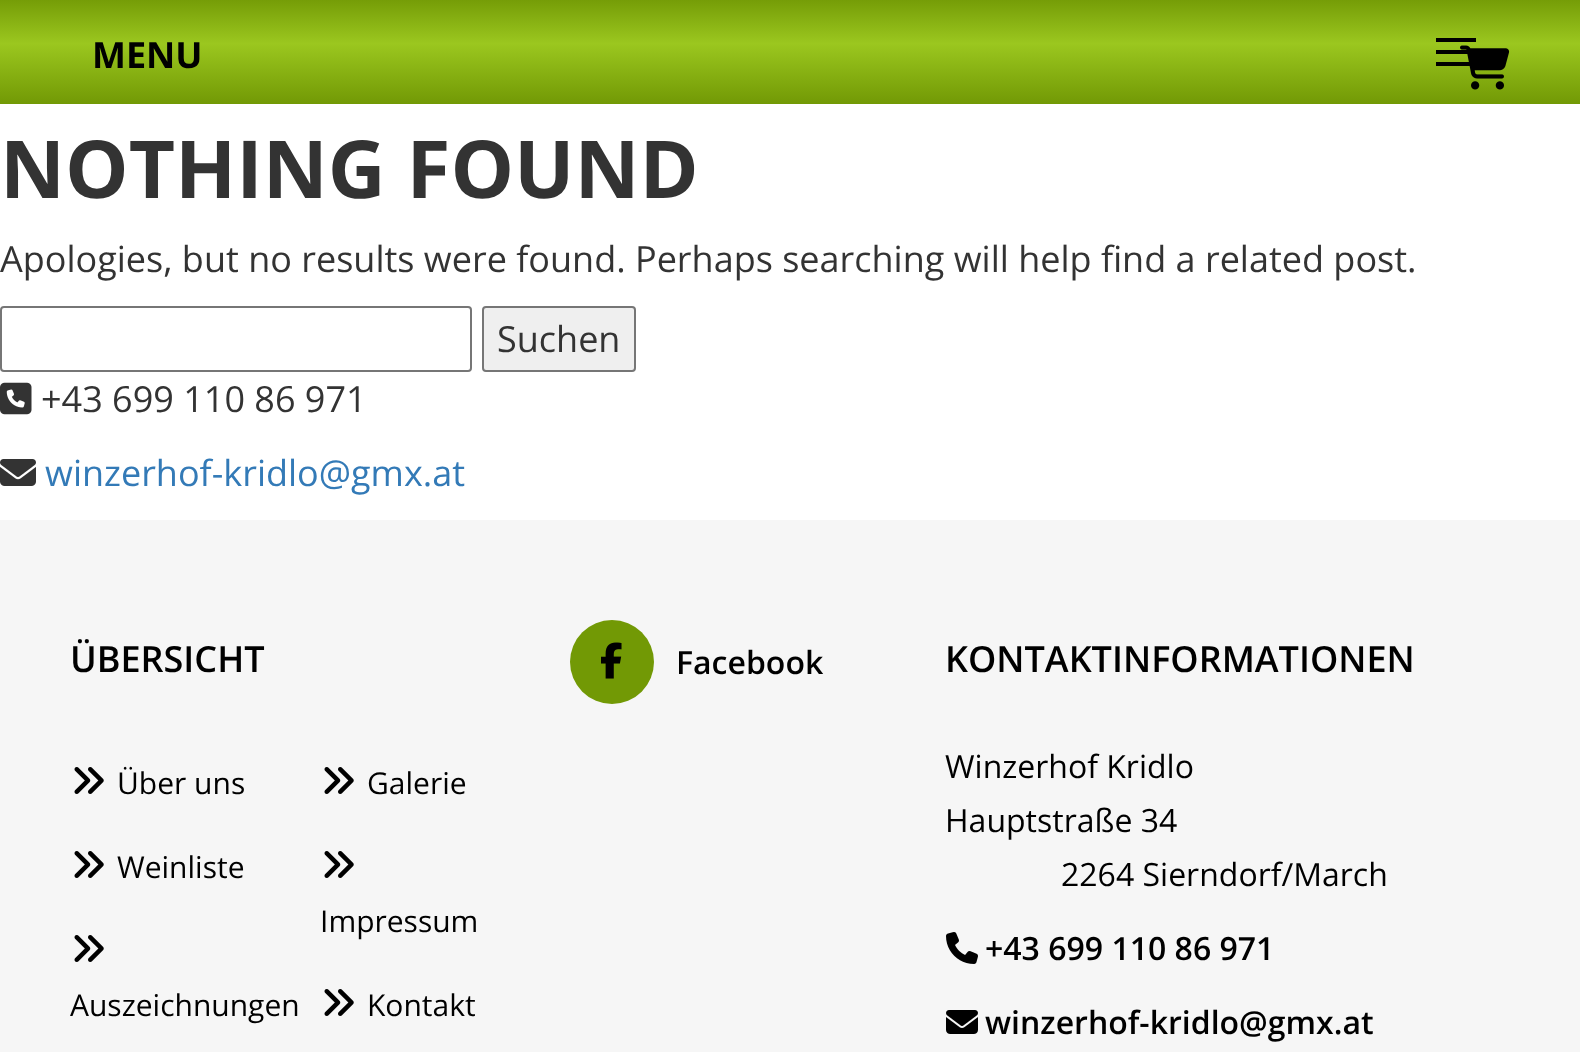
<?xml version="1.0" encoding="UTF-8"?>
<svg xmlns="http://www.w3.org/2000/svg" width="1580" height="1052">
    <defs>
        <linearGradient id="g1" gradientUnits="userSpaceOnUse" x1="790" y1="-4" x2="790" y2="104"><stop offset="0" stop-color="#729905"/><stop offset="0.44" stop-color="#9BC71F"/><stop offset="1" stop-color="#729905"/></linearGradient>
    </defs>
    <rect width="100%" height="100%" fill="#FFFFFF"/>
    <rect x="0" y="0" width="1580" height="104" fill="url(#g1)"/>
    <rect x="1436" y="38" width="40" height="4" fill="#000000"/>
    <text x="92" y="68" font-family="Open Sans" font-size="36" font-weight="700" fill="#000000">MENU</text>
    <rect x="1436" y="50" width="40" height="4" fill="#000000"/>
    <rect x="1436" y="62" width="40" height="4" fill="#000000"/>
    <image x="1460" y="45" width="50" height="45" href="img_01.png"/>
    <text x="0" y="198" font-family="Open Sans" font-size="80" font-weight="700" fill="#333333">NOTHING FOUND</text>
    <text x="0" y="272" font-family="Open Sans" font-size="36" fill="#333333">Apologies, but no results were found. Perhaps searching will help find a related post.</text>
    <rect x="1" y="307" width="470" height="64" rx="3" fill="none" stroke="#767676" stroke-width="2"/>
    <rect x="483" y="307" width="152" height="64" rx="3" fill="#EFEFEF" stroke="#767676" stroke-width="2"/>
    <text x="497" y="352" font-family="Open Sans" font-size="36" fill="#333333">Suchen</text>
    <image x="0" y="382" width="32" height="33" href="img_02.png"/>
    <text x="41" y="412" font-family="Open Sans" font-size="36" fill="#333333">+43 699 110 86 971</text>
    <image x="0" y="459" width="36" height="27" href="img_03.png"/>
    <text x="45" y="486" font-family="Open Sans" font-size="36" fill="#337AB7">winzerhof-kridlo@gmx.at</text>
    <rect x="0" y="520" width="1580" height="532" fill="#F6F6F6"/>
    <text x="70" y="672" font-family="Open Sans" font-size="36" font-weight="600" fill="#000000">ÜBERSICHT</text>
    <image x="74" y="767" width="30" height="27" href="img_04.png"/>
    <text x="117" y="794" font-family="Open Sans" font-size="30" fill="#000000">Über uns</text>
    <image x="74" y="851" width="30" height="27" href="img_04.png"/>
    <text x="117" y="878" font-family="Open Sans" font-size="30" fill="#000000">Weinliste</text>
    <image x="74" y="935" width="30" height="27" href="img_04.png"/>
    <text x="70" y="1016" font-family="Open Sans" font-size="30" fill="#000000">Auszeichnungen</text>
    <image x="324" y="767" width="30" height="27" href="img_04.png"/>
    <text x="367" y="794" font-family="Open Sans" font-size="30" fill="#000000">Galerie</text>
    <image x="324" y="851" width="30" height="27" href="img_04.png"/>
    <text x="320" y="932" font-family="Open Sans" font-size="30" fill="#000000">Impressum</text>
    <image x="324" y="989" width="30" height="27" href="img_04.png"/>
    <text x="367" y="1016" font-family="Open Sans" font-size="30" fill="#000000">Kontakt</text>
    <circle cx="612" cy="662" r="42" fill="#729905"/>
    <image x="601" y="642" width="21" height="37" href="img_05.png"/>
    <text x="676" y="674" font-family="Open Sans" font-size="32" font-weight="600" fill="#000000">Facebook</text>
    <text x="945" y="672" font-family="Open Sans" font-size="36" font-weight="600" fill="#000000">KONTAKTINFORMATIONEN</text>
    <text font-family="Open Sans" font-size="32" fill="#000000">
        <tspan x="945" y="778">Winzerhof Kridlo</tspan>
        <tspan x="945" y="832">Hauptstraße 34</tspan>
    </text>
    <text x="1061" y="886" font-family="Open Sans" font-size="32" fill="#000000">2264 Sierndorf/March</text>
    <image x="946" y="932" width="32" height="32" href="img_06.png"/>
    <text x="985" y="960" font-family="Open Sans" font-size="32" font-weight="600" fill="#000000">+43 699 110 86 971</text>
    <image x="946" y="1010" width="32" height="24" href="img_07.png"/>
    <text x="985" y="1034" font-family="Open Sans" font-size="32" font-weight="600" fill="#000000">winzerhof-kridlo@gmx.at</text>
</svg>
